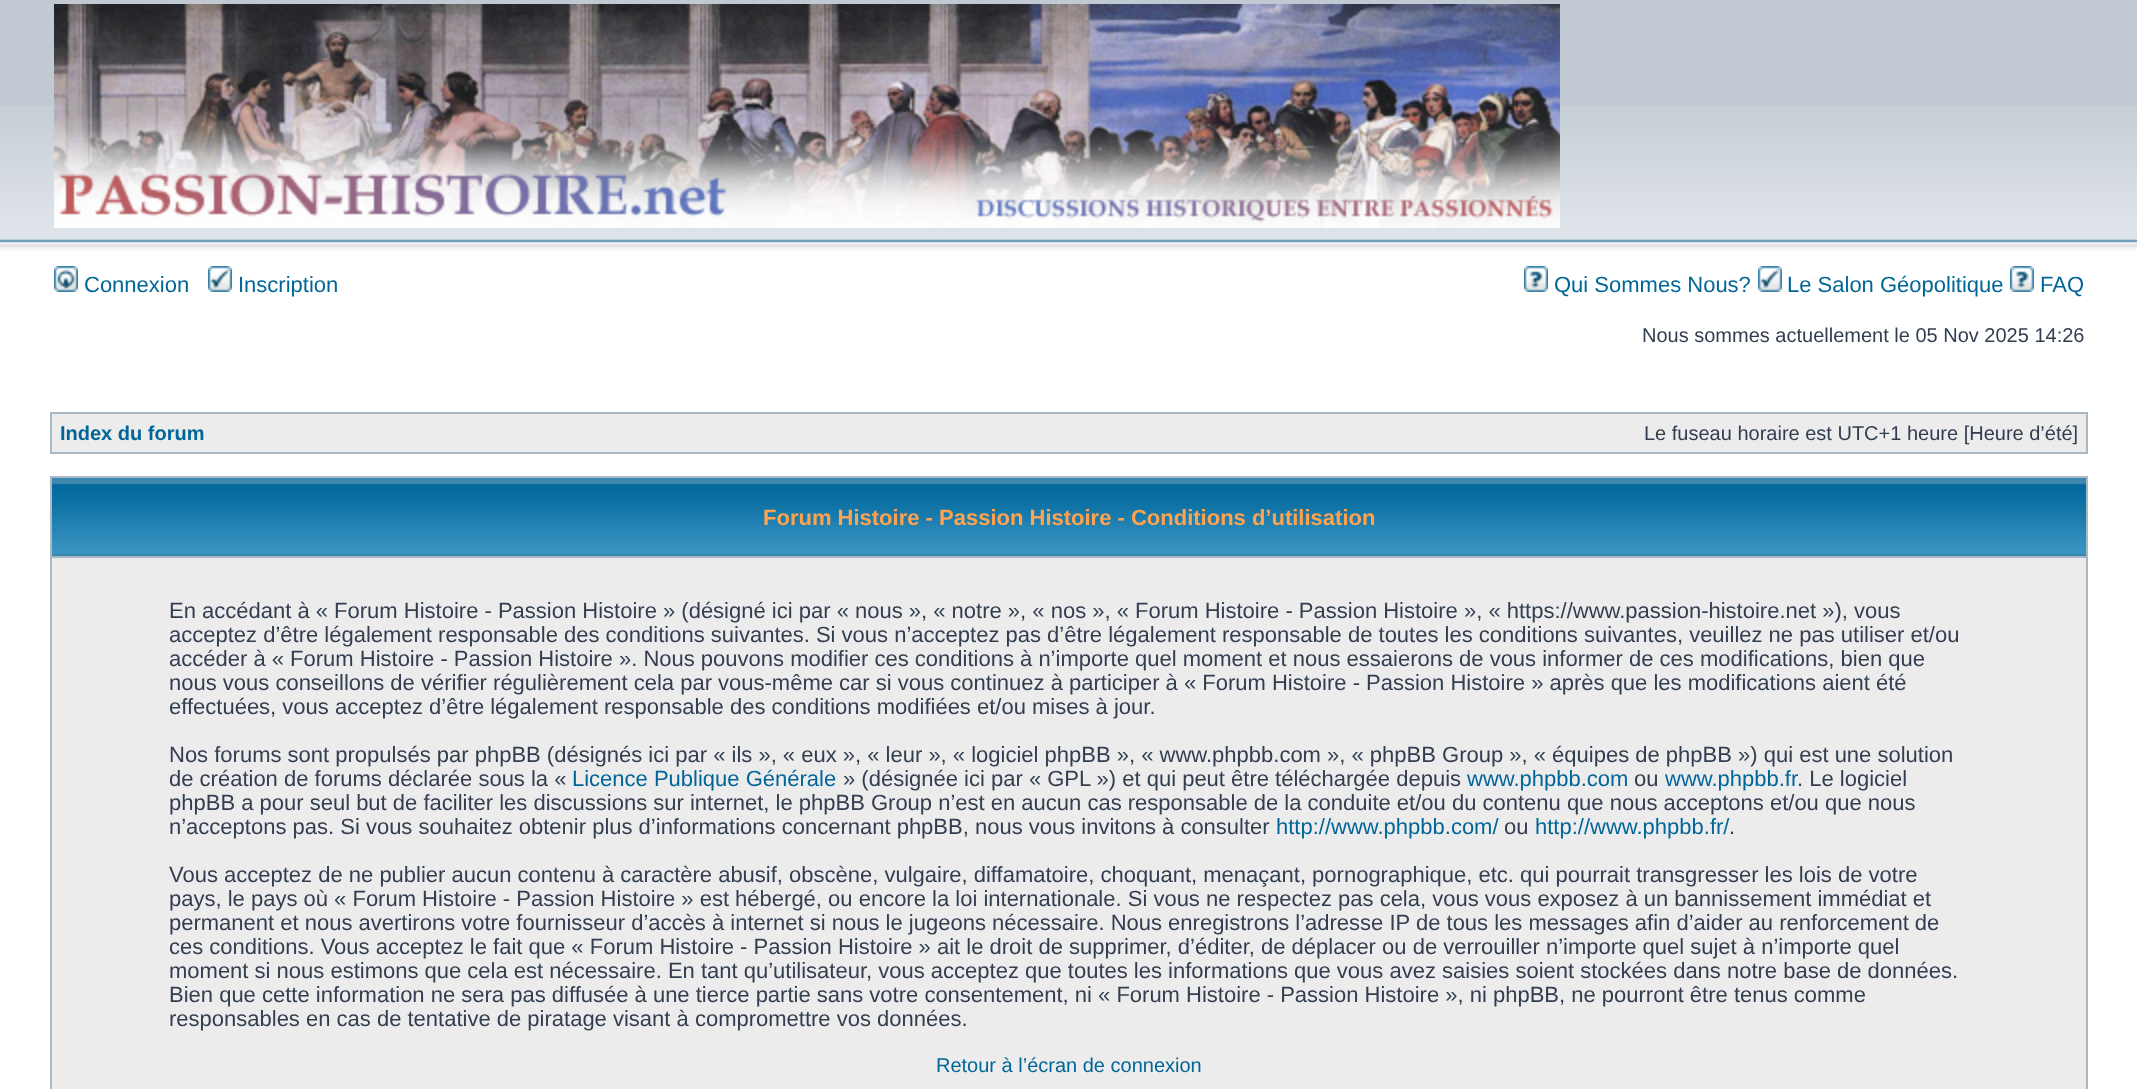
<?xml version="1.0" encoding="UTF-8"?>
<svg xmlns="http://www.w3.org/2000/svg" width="2137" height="1089">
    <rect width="100%" height="100%" fill="#FFFFFF"/>
    <rect x="0" y="0" width="2137" height="106" fill="#C1CAD2"/>
    <image x="0" y="106" width="2137" height="156" href="img_01.png"/>
    <image x="54" y="4" width="1506" height="224" href="img_02.png"/>
    <image x="54" y="266" width="24" height="26" href="img_03.png"/>
    <text x="84" y="292" font-family="Liberation Sans" font-size="22" fill="#006597">Connexion</text>
    <image x="208" y="266" width="24" height="26" href="img_04.png"/>
    <text x="238" y="292" font-family="Liberation Sans" font-size="22" fill="#006597">Inscription</text>
    <image x="1524" y="266" width="24" height="26" href="img_05.png"/>
    <text x="1554" y="292" font-family="Liberation Sans" font-size="22" fill="#006597">Qui Sommes Nous?</text>
    <image x="1758" y="266" width="24" height="26" href="img_04.png"/>
    <text x="1787" y="292" font-family="Liberation Sans" font-size="22" fill="#006597">Le Salon Géopolitique</text>
    <image x="2010" y="266" width="24" height="26" href="img_05.png"/>
    <text x="2040" y="292" font-family="Liberation Sans" font-size="22" fill="#006597">FAQ</text>
    <text x="1642" y="342" font-family="Liberation Sans" font-size="20" fill="#323D4F">Nous sommes actuellement le 05 Nov 2025 14:26</text>
    <rect x="50" y="412" width="2038" height="42" fill="#A9B8C2"/>
    <rect x="52" y="414" width="2034" height="38" fill="#ECECEC"/>
    <text x="60" y="440" font-family="Liberation Sans" font-size="20" font-weight="700" fill="#006597">Index du forum</text>
    <text x="1644" y="440" font-family="Liberation Sans" font-size="20" fill="#323D4F">Le fuseau horaire est UTC+1 heure [Heure d’été]</text>
    <rect x="50" y="476" width="2038" height="613" fill="#A9B8C2"/>
    <image x="52" y="478" width="2034" height="78" href="img_06.png"/>
    <text x="763" y="525" font-family="Liberation Sans" font-size="22" font-weight="700" fill="#FFA34F">Forum Histoire - Passion Histoire - Conditions d’utilisation</text>
    <rect x="52" y="558" width="2034" height="531" fill="#ECECEC"/>
    <text font-family="Liberation Sans" font-size="22" fill="#323D4F">
        <tspan x="169" y="618">En accédant à « Forum Histoire - Passion Histoire » (désigné ici par « nous », « notre », « nos », « Forum Histoire - Passion Histoire », « https://www.passion-histoire.net »), vous</tspan>
        <tspan x="169" y="642">acceptez d’être légalement responsable des conditions suivantes. Si vous n’acceptez pas d’être légalement responsable de toutes les conditions suivantes, veuillez ne pas utiliser et/ou</tspan>
        <tspan x="169" y="666">accéder à « Forum Histoire - Passion Histoire ». Nous pouvons modifier ces conditions à n’importe quel moment et nous essaierons de vous informer de ces modifications, bien que</tspan>
        <tspan x="169" y="690">nous vous conseillons de vérifier régulièrement cela par vous-même car si vous continuez à participer à « Forum Histoire - Passion Histoire » après que les modifications aient été</tspan>
        <tspan x="169" y="714">effectuées, vous acceptez d’être légalement responsable des conditions modifiées et/ou mises à jour.</tspan>
    </text>
    <text font-family="Liberation Sans" font-size="22" fill="#323D4F">
        <tspan x="169" y="762">Nos forums sont propulsés par phpBB (désignés ici par « ils », « eux », « leur », « logiciel phpBB », « www.phpbb.com », « phpBB Group », « équipes de phpBB ») qui est une solution</tspan>
        <tspan x="169" y="786">de création de forums déclarée sous la «</tspan>
    </text>
    <text x="572" y="786" font-family="Liberation Sans" font-size="22" fill="#006597">Licence Publique Générale</text>
    <text x="843" y="786" font-family="Liberation Sans" font-size="22" fill="#323D4F">» (désignée ici par « GPL ») et qui peut être téléchargée depuis</text>
    <text x="1467" y="786" font-family="Liberation Sans" font-size="22" fill="#006597">www.phpbb.com</text>
    <text x="1634" y="786" font-family="Liberation Sans" font-size="22" fill="#323D4F">ou</text>
    <text x="1665" y="786" font-family="Liberation Sans" font-size="22" fill="#006597">www.phpbb.fr</text>
    <text x="1797" y="786" font-family="Liberation Sans" font-size="22" fill="#323D4F">. Le logiciel</text>
    <text font-family="Liberation Sans" font-size="22" fill="#323D4F">
        <tspan x="169" y="810">phpBB a pour seul but de faciliter les discussions sur internet, le phpBB Group n’est en aucun cas responsable de la conduite et/ou du contenu que nous acceptons et/ou que nous</tspan>
        <tspan x="169" y="834">n’acceptons pas. Si vous souhaitez obtenir plus d’informations concernant phpBB, nous vous invitons à consulter</tspan>
    </text>
    <text x="1276" y="834" font-family="Liberation Sans" font-size="22" fill="#006597">http://www.phpbb.com/</text>
    <text x="1504" y="834" font-family="Liberation Sans" font-size="22" fill="#323D4F">ou</text>
    <text x="1535" y="834" font-family="Liberation Sans" font-size="22" fill="#006597">http://www.phpbb.fr/</text>
    <text x="1729" y="834" font-family="Liberation Sans" font-size="22" fill="#323D4F">.</text>
    <text font-family="Liberation Sans" font-size="22" fill="#323D4F">
        <tspan x="169" y="882">Vous acceptez de ne publier aucun contenu à caractère abusif, obscène, vulgaire, diffamatoire, choquant, menaçant, pornographique, etc. qui pourrait transgresser les lois de votre</tspan>
        <tspan x="169" y="906">pays, le pays où « Forum Histoire - Passion Histoire » est hébergé, ou encore la loi internationale. Si vous ne respectez pas cela, vous vous exposez à un bannissement immédiat et</tspan>
        <tspan x="169" y="930">permanent et nous avertirons votre fournisseur d’accès à internet si nous le jugeons nécessaire. Nous enregistrons l’adresse IP de tous les messages afin d’aider au renforcement de</tspan>
        <tspan x="169" y="954">ces conditions. Vous acceptez le fait que « Forum Histoire - Passion Histoire » ait le droit de supprimer, d’éditer, de déplacer ou de verrouiller n’importe quel sujet à n’importe quel</tspan>
        <tspan x="169" y="978">moment si nous estimons que cela est nécessaire. En tant qu’utilisateur, vous acceptez que toutes les informations que vous avez saisies soient stockées dans notre base de données.</tspan>
        <tspan x="169" y="1002">Bien que cette information ne sera pas diffusée à une tierce partie sans votre consentement, ni « Forum Histoire - Passion Histoire », ni phpBB, ne pourront être tenus comme</tspan>
        <tspan x="169" y="1026">responsables en cas de tentative de piratage visant à compromettre vos données.</tspan>
    </text>
    <text x="936" y="1072" font-family="Liberation Sans" font-size="20" fill="#006597">Retour à l’écran de connexion</text>
</svg>
